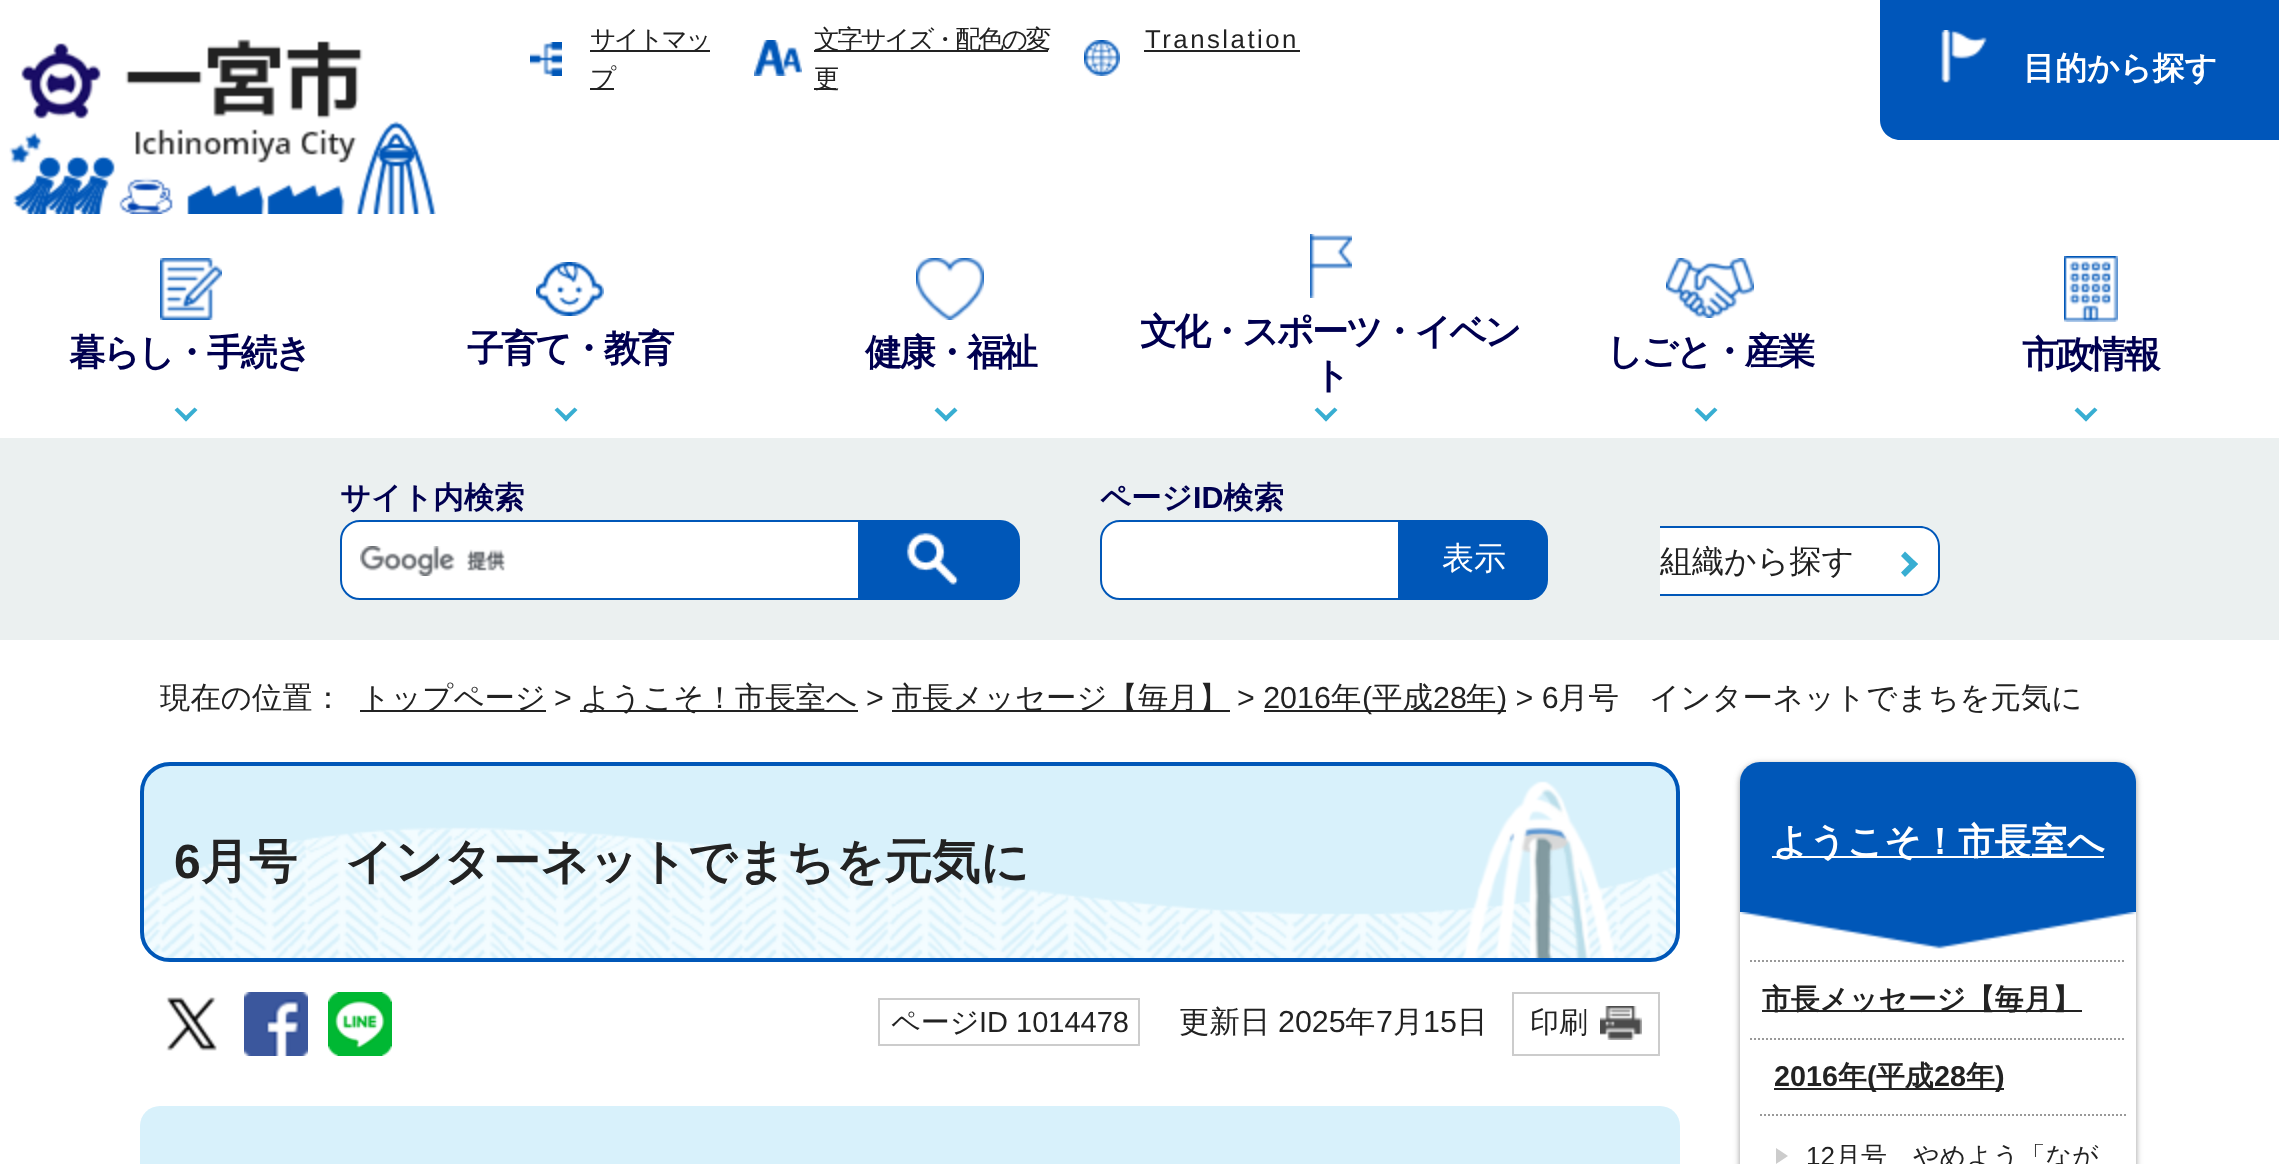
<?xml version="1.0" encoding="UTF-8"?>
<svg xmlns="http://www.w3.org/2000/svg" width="2279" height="1164">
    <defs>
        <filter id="blur1" x="-50%" y="-200%" width="200%" height="500%"><feGaussianBlur stdDeviation="3"/></filter>
    </defs>
    <rect width="100%" height="100%" fill="#FFFFFF"/>
    <image x="530" y="42" width="32" height="34" href="img_01.png"/>
    <rect x="590" y="50" width="120" height="2" fill="#222222"/>
    <text x="590" y="48" font-family="WenQuanYi Zen Hei" font-size="25.75" font-weight="500" letter-spacing="-2.5" fill="#222222">サイトマッ</text>
    <rect x="590" y="88" width="24" height="2" fill="#222222"/>
    <text x="590" y="87" font-family="WenQuanYi Zen Hei" font-size="25.75" font-weight="500" letter-spacing="-2.5" fill="#222222">プ</text>
    <image x="754" y="40" width="48" height="36" href="img_02.png"/>
    <rect x="814" y="50" width="234" height="2" fill="#222222"/>
    <text x="814" y="48" font-family="WenQuanYi Zen Hei" font-size="25.75" font-weight="500" letter-spacing="-2.5" fill="#222222">文字サイズ・配色の変</text>
    <rect x="814" y="88" width="22" height="2" fill="#222222"/>
    <text x="814" y="87" font-family="WenQuanYi Zen Hei" font-size="25.75" font-weight="500" letter-spacing="-2.5" fill="#222222">更</text>
    <image x="1084" y="40" width="36" height="36" href="img_03.png"/>
    <text x="1145" y="48" font-family="Liberation Sans" font-size="25.75" letter-spacing="2.5" fill="#222222">Translation</text>
    <rect x="1144" y="50" width="156" height="2" fill="#222222"/>
    <image x="160" y="258" width="62" height="62" href="img_04.png"/>
    <text x="69" y="365" font-family="WenQuanYi Zen Hei" font-size="36.75" font-weight="700" letter-spacing="-2.75" fill="#000050">暮らし・手続き</text>
    <path d="M 197.5 410 L 186 421.5 L 183 418.5 L 194.5 407.5 Z" fill="#38AED2"/>
    <path d="M 189 418.5 L 186 421.5 L 174.5 410 L 177.5 407.5 Z" fill="#38AED2"/>
    <image x="536" y="262" width="68" height="54" href="img_05.png"/>
    <text x="467" y="361" font-family="WenQuanYi Zen Hei" font-size="36.75" font-weight="700" letter-spacing="-2.75" fill="#000050">子育て・教育</text>
    <path d="M 577.5 410 L 566 421.5 L 563 418.5 L 574.5 407.5 Z" fill="#38AED2"/>
    <path d="M 569 418.5 L 566 421.5 L 554.5 410 L 557.5 407.5 Z" fill="#38AED2"/>
    <image x="916" y="258" width="68" height="62" href="img_06.png"/>
    <text x="865" y="365" font-family="WenQuanYi Zen Hei" font-size="36.75" font-weight="700" letter-spacing="-2.75" fill="#000050">健康・福祉</text>
    <path d="M 957.5 410.5 L 946 421.5 L 943 418.5 L 954.5 407.5 Z" fill="#38AED2"/>
    <path d="M 949 418.5 L 946 421.5 L 934.5 410.5 L 937.5 407.5 Z" fill="#38AED2"/>
    <image x="1310" y="234" width="42" height="64" href="img_07.png"/>
    <text x="1140" y="344" font-family="WenQuanYi Zen Hei" font-size="36.75" font-weight="700" letter-spacing="-2.75" fill="#000050">文化・スポーツ・イベン</text>
    <text x="1313" y="388" font-family="WenQuanYi Zen Hei" font-size="36.75" font-weight="700" letter-spacing="-2.75" fill="#000050">ト</text>
    <path d="M 1337.5 410 L 1326 421.5 L 1323 418.5 L 1334.5 407.5 Z" fill="#38AED2"/>
    <path d="M 1329 418.5 L 1326 421.5 L 1314.5 410 L 1317.5 407.5 Z" fill="#38AED2"/>
    <image x="1666" y="258" width="88" height="60" href="img_08.png"/>
    <text x="1606" y="364" font-family="WenQuanYi Zen Hei" font-size="36.75" font-weight="700" letter-spacing="-2.75" fill="#000050">しごと・産業</text>
    <path d="M 1717.5 410 L 1706 421.5 L 1703 418.5 L 1714.5 407.5 Z" fill="#38AED2"/>
    <path d="M 1709 418.5 L 1706 421.5 L 1694.5 410.5 L 1697.5 407.5 Z" fill="#38AED2"/>
    <image x="2064" y="256" width="54" height="66" href="img_09.png"/>
    <text x="2022" y="367" font-family="WenQuanYi Zen Hei" font-size="36.75" font-weight="700" letter-spacing="-2.75" fill="#000050">市政情報</text>
    <path d="M 2097.5 410 L 2086 421.5 L 2083 418.5 L 2094.5 407.5 Z" fill="#38AED2"/>
    <path d="M 2089 418.5 L 2086 421.5 L 2074.5 410.5 L 2077.5 407.5 Z" fill="#38AED2"/>
    <image x="9" y="39" width="427" height="175" href="img_10.png"/>
    <path d="M 1880 0 H 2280 V 140 H 1900 C 1889 140 1880 131 1880 120 Z" fill="#0056BA"/>
    <image x="1941" y="30" width="46" height="53" href="img_11.png"/>
    <text x="2023" y="79" font-family="WenQuanYi Zen Hei" font-size="32" font-weight="700" fill="#FFFFFF">目的から探す</text>
    <rect x="0" y="438" width="2279" height="202" fill="#EBF0F0"/>
    <text x="340" y="508" font-family="WenQuanYi Zen Hei" font-size="30.4" font-weight="700" fill="#000050">サイト内検索</text>
    <path d="M 360 520 H 860 V 600 H 360 C 349 600 340 591 340 580 V 540 C 340 529 349 520 360 520 Z" fill="#FFFFFF"/>
    <image x="360" y="546" width="146" height="30" href="img_12.png"/>
    <path d="M 360 521 H 859 V 599 H 360 C 349.5 599 341 590.5 341 580 V 540 C 341 529.5 349.5 521 360 521 Z" fill="none" stroke="#0057B8" stroke-width="2"/>
    <path d="M 860 520 H 1000 C 1011 520 1020 529 1020 540 V 580 C 1020 591 1011 600 1000 600 H 860 Z" fill="#0057B8"/>
    <image x="906" y="532" width="53" height="53" href="img_13.png"/>
    <text x="1100" y="508" font-family="WenQuanYi Zen Hei" font-size="30.4" font-weight="700" fill="#000050">ページ</text>
    <text x="1193" y="508" font-family="Liberation Sans" font-size="30.4" font-weight="700" fill="#000050">ID</text>
    <text x="1223" y="508" font-family="WenQuanYi Zen Hei" font-size="30.4" font-weight="700" fill="#000050">検索</text>
    <path d="M 1120 521 H 1399 V 599 H 1120 C 1109.5 599 1101 590.5 1101 580 V 540 C 1101 529.5 1109.5 521 1120 521 Z" fill="#FFFFFF" stroke="#0057B8" stroke-width="2"/>
    <path d="M 1401 521 H 1528 C 1538.5 521 1547 529.5 1547 540 V 580 C 1547 590.5 1538.5 599 1528 599 H 1401 Z" fill="#0057B8" stroke="#0057B8" stroke-width="2"/>
    <text x="1442" y="569" font-family="WenQuanYi Zen Hei" font-size="32" font-weight="500" fill="#FFFFFF">表示</text>
    <path d="M 1660 526 H 1920 C 1931 526 1940 535 1940 546 V 576 C 1940 587 1931 596 1920 596 H 1660 Z" fill="#FFFFFF"/>
    <path d="M 1660 526 H 1920 C 1931 526 1940 535 1940 546 V 576 C 1940 587 1931 596 1920 596 H 1660 Z M 1660 528 H 1920 C 1930 528 1938 536 1938 546 V 576 C 1938 586 1930 594 1920 594 H 1660 Z" fill="#0057B8" fill-rule="evenodd"/>
    <text x="1660" y="572" font-family="WenQuanYi Zen Hei" font-size="32" font-weight="500" fill="#222222">組織から探す</text>
    <path d="M 1905 551.5 L 1918 564 L 1913.5 568.5 L 1901 556 Z" fill="#38AED2"/>
    <path d="M 1913.5 560 L 1918 564 L 1905 577 L 1901 572.5 Z" fill="#38AED2"/>
    <text x="160" y="708" font-family="WenQuanYi Zen Hei" font-size="30.4" font-weight="500" fill="#222222">現在の位置：</text>
    <rect x="360" y="710" width="186" height="2" fill="#222222"/>
    <text x="360" y="708" font-family="WenQuanYi Zen Hei" font-size="30.4" font-weight="500" fill="#222222">トップページ</text>
    <text x="554" y="708" font-family="Liberation Sans" font-size="30.4" fill="#222222">&gt;</text>
    <rect x="580" y="710" width="278" height="2" fill="#222222"/>
    <text x="580" y="708" font-family="WenQuanYi Zen Hei" font-size="30.4" font-weight="500" fill="#222222">ようこそ！市長室へ</text>
    <text x="866" y="708" font-family="Liberation Sans" font-size="30.4" fill="#222222">&gt;</text>
    <rect x="892" y="710" width="338" height="2" fill="#222222"/>
    <text x="892" y="708" font-family="WenQuanYi Zen Hei" font-size="30.4" font-weight="500" fill="#222222">市長メッセージ【毎月】</text>
    <text x="1237" y="708" font-family="Liberation Sans" font-size="30.4" fill="#222222">&gt; 2016</text>
    <rect x="1264" y="710" width="242" height="2" fill="#222222"/>
    <text x="1331" y="708" font-family="WenQuanYi Zen Hei" font-size="30.4" font-weight="500" fill="#222222">年</text>
    <text x="1362" y="708" font-family="Liberation Sans" font-size="30.4" fill="#222222">(</text>
    <text x="1372" y="708" font-family="WenQuanYi Zen Hei" font-size="30.4" font-weight="500" fill="#222222">平成</text>
    <text x="1433" y="708" font-family="Liberation Sans" font-size="30.4" fill="#222222">28</text>
    <text x="1466" y="708" font-family="WenQuanYi Zen Hei" font-size="30.4" font-weight="500" fill="#222222">年</text>
    <text x="1497" y="708" font-family="Liberation Sans" font-size="30.4" fill="#222222">) &gt; 6</text>
    <text x="1558" y="708" font-family="WenQuanYi Zen Hei" font-size="30.4" font-weight="500" fill="#222222">月号　インターネットでまちを元気に</text>
    <rect x="140" y="762" width="1540" height="200" rx="30" fill="#D8F1FB"/>
    <image x="144" y="781" width="1536" height="177" href="img_14.png"/>
    <rect x="142" y="764" width="1536" height="196" rx="28" fill="none" stroke="#0057B8" stroke-width="4"/>
    <text x="174" y="878" font-family="Liberation Sans" font-size="48" font-weight="700" fill="#222222">6</text>
    <text x="201" y="878" font-family="WenQuanYi Zen Hei" font-size="48" font-weight="700" fill="#222222">月号　インターネットでまちを元気に</text>
    <image x="166" y="997" width="51" height="54" href="img_15.png"/>
    <image x="244" y="992" width="64" height="64" href="img_16.png"/>
    <image x="328" y="992" width="64" height="64" href="img_17.png"/>
    <rect x="879" y="999" width="260" height="46" fill="none" stroke="#CCCCCC" stroke-width="2"/>
    <text x="891" y="1032" font-family="WenQuanYi Zen Hei" font-size="29" font-weight="500" fill="#222222">ページ</text>
    <text x="979" y="1032" font-family="Liberation Sans" font-size="29" fill="#222222">ID 1014478</text>
    <text x="1179" y="1032" font-family="WenQuanYi Zen Hei" font-size="30.4" font-weight="500" fill="#222222">更新日</text>
    <text x="1278" y="1032" font-family="Liberation Sans" font-size="30.4" fill="#222222">2025</text>
    <text x="1345" y="1032" font-family="WenQuanYi Zen Hei" font-size="30.4" font-weight="500" fill="#222222">年</text>
    <text x="1376" y="1032" font-family="Liberation Sans" font-size="30.4" fill="#222222">7</text>
    <text x="1393" y="1032" font-family="WenQuanYi Zen Hei" font-size="30.4" font-weight="500" fill="#222222">月</text>
    <text x="1423" y="1032" font-family="Liberation Sans" font-size="30.4" fill="#222222">15</text>
    <text x="1457" y="1032" font-family="WenQuanYi Zen Hei" font-size="30.4" font-weight="500" fill="#222222">日</text>
    <rect x="1513" y="993" width="146" height="62" fill="none" stroke="#CCCCCC" stroke-width="2"/>
    <image x="1600" y="1006" width="42" height="34" href="img_18.png"/>
    <text x="1530" y="1032" font-family="WenQuanYi Zen Hei" font-size="29" font-weight="500" fill="#222222">印刷</text>
    <rect x="140" y="1106" width="1540" height="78" rx="20" fill="#D8F1FB"/>
    <rect x="1740" y="764" width="396" height="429" rx="20" fill="#999999" filter="url(#blur1)"/>
    <rect x="1740" y="762" width="396" height="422" rx="20" fill="#FFFFFF"/>
    <path d="M 1760 762 H 2116 C 2127 762 2136 771 2136 782 V 950 H 1740 V 782 C 1740 771 1749 762 1760 762 Z" fill="#0057B8"/>
    <image x="1740" y="912" width="396" height="38" href="img_19.png"/>
    <rect x="1772" y="856" width="332" height="2" fill="#FFFFFF"/>
    <text x="1772" y="854" font-family="WenQuanYi Zen Hei" font-size="36.5" font-weight="700" fill="#FFFFFF">ようこそ！市長室へ</text>
    <path d="M 1750 961 H 2126" fill="none" stroke="#999999" stroke-width="2" stroke-dasharray="2 2"/>
    <rect x="1762" y="1010" width="320" height="2" fill="#222222"/>
    <text x="1762" y="1009" font-family="WenQuanYi Zen Hei" font-size="28.75" font-weight="700" fill="#222222">市長メッセージ【毎月】</text>
    <path d="M 1750 1039 H 2126" fill="none" stroke="#999999" stroke-width="2" stroke-dasharray="2 2"/>
    <text x="1774" y="1086" font-family="Liberation Sans" font-size="28.75" font-weight="700" fill="#222222">2016</text>
    <rect x="1774" y="1088" width="230" height="2" fill="#222222"/>
    <text x="1838" y="1086" font-family="WenQuanYi Zen Hei" font-size="28.75" font-weight="700" fill="#222222">年</text>
    <text x="1867" y="1086" font-family="Liberation Sans" font-size="28.75" font-weight="700" fill="#222222">(</text>
    <text x="1876" y="1086" font-family="WenQuanYi Zen Hei" font-size="28.75" font-weight="700" fill="#222222">平成</text>
    <text x="1934" y="1086" font-family="Liberation Sans" font-size="28.75" font-weight="700" fill="#222222">28</text>
    <text x="1966" y="1086" font-family="WenQuanYi Zen Hei" font-size="28.75" font-weight="700" fill="#222222">年</text>
    <text x="1995" y="1086" font-family="Liberation Sans" font-size="28.75" font-weight="700" fill="#222222">)</text>
    <path d="M 1760 1115 H 2126" fill="none" stroke="#999999" stroke-width="2" stroke-dasharray="2 2"/>
    <path d="M 1776 1164 V 1148 L 1788 1156 Z" fill="#CCCCCC"/>
    <text x="1806" y="1165" font-family="Liberation Sans" font-size="26" fill="#222222">12</text>
    <text x="1835" y="1165" font-family="WenQuanYi Zen Hei" font-size="26" font-weight="500" fill="#222222">月号　やめよう「なが</text>
</svg>
